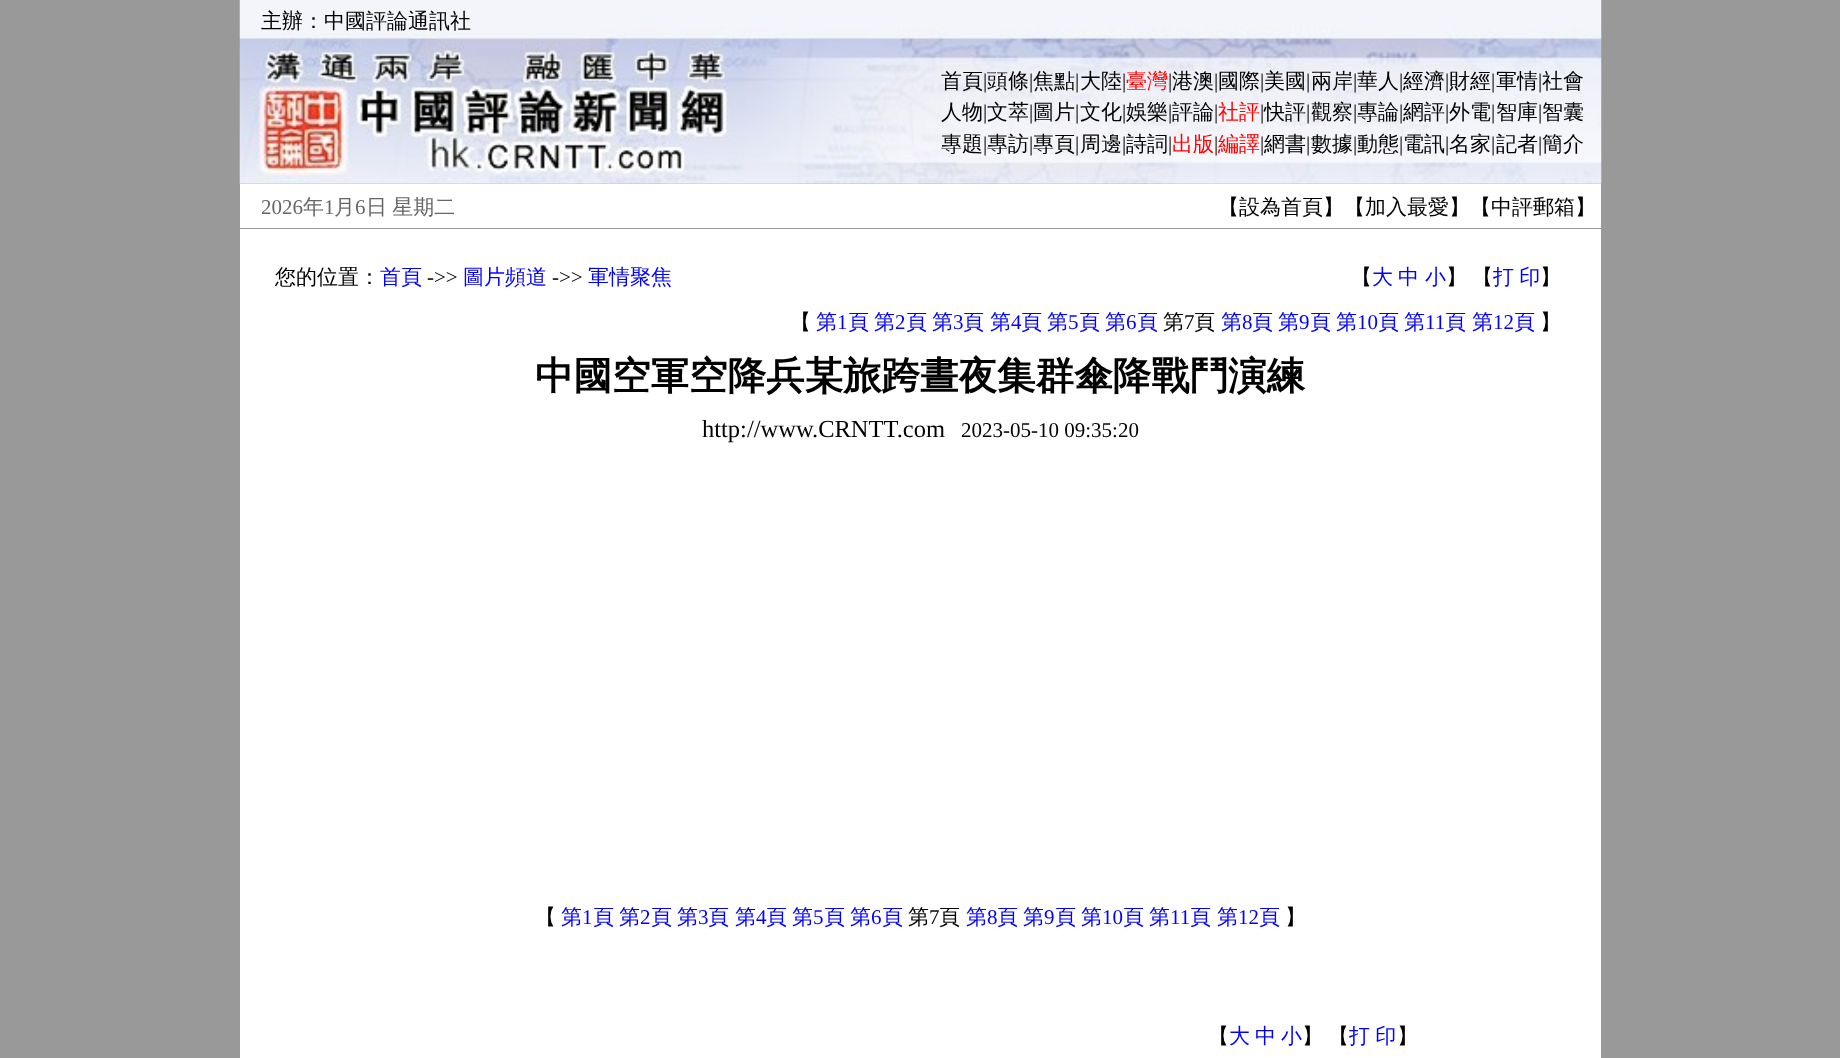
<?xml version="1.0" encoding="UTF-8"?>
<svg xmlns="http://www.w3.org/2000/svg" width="1840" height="1058">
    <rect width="100%" height="100%" fill="#999999"/>
    <image x="239" y="0" width="1363" height="184" href="img_01.png"/>
    <text x="261" y="28" font-family="WenQuanYi Zen Hei" font-size="21" font-weight="500" fill="#000000">主辦：中國評論通訊社</text>
    <text x="941" y="88" font-family="WenQuanYi Zen Hei" font-size="21" font-weight="500" fill="#000000">首頁</text>
    <text x="983" y="88" font-family="Liberation Serif" font-size="21" fill="#000000">|</text>
    <text x="987" y="88" font-family="WenQuanYi Zen Hei" font-size="21" font-weight="500" fill="#000000">頭條</text>
    <text x="1029" y="88" font-family="Liberation Serif" font-size="21" fill="#000000">|</text>
    <text x="1033" y="88" font-family="WenQuanYi Zen Hei" font-size="21" font-weight="500" fill="#000000">焦點</text>
    <text x="1075" y="88" font-family="Liberation Serif" font-size="21" fill="#000000">|</text>
    <text x="1080" y="88" font-family="WenQuanYi Zen Hei" font-size="21" font-weight="500" fill="#000000">大陸</text>
    <text x="1122" y="88" font-family="Liberation Serif" font-size="21" fill="#000000">|</text>
    <text x="1126" y="88" font-family="WenQuanYi Zen Hei" font-size="21" font-weight="500" fill="#FF0000">臺灣</text>
    <text x="1168" y="88" font-family="Liberation Serif" font-size="21" fill="#000000">|</text>
    <text x="1172" y="88" font-family="WenQuanYi Zen Hei" font-size="21" font-weight="500" fill="#000000">港澳</text>
    <text x="1214" y="88" font-family="Liberation Serif" font-size="21" fill="#000000">|</text>
    <text x="1218" y="88" font-family="WenQuanYi Zen Hei" font-size="21" font-weight="500" fill="#000000">國際</text>
    <text x="1260" y="88" font-family="Liberation Serif" font-size="21" fill="#000000">|</text>
    <text x="1264" y="88" font-family="WenQuanYi Zen Hei" font-size="21" font-weight="500" fill="#000000">美國</text>
    <text x="1306" y="88" font-family="Liberation Serif" font-size="21" fill="#000000">|</text>
    <text x="1311" y="88" font-family="WenQuanYi Zen Hei" font-size="21" font-weight="500" fill="#000000">兩岸</text>
    <text x="1353" y="88" font-family="Liberation Serif" font-size="21" fill="#000000">|</text>
    <text x="1357" y="88" font-family="WenQuanYi Zen Hei" font-size="21" font-weight="500" fill="#000000">華人</text>
    <text x="1399" y="88" font-family="Liberation Serif" font-size="21" fill="#000000">|</text>
    <text x="1403" y="88" font-family="WenQuanYi Zen Hei" font-size="21" font-weight="500" fill="#000000">經濟</text>
    <text x="1445" y="88" font-family="Liberation Serif" font-size="21" fill="#000000">|</text>
    <text x="1449" y="88" font-family="WenQuanYi Zen Hei" font-size="21" font-weight="500" fill="#000000">財經</text>
    <text x="1491" y="88" font-family="Liberation Serif" font-size="21" fill="#000000">|</text>
    <text x="1496" y="88" font-family="WenQuanYi Zen Hei" font-size="21" font-weight="500" fill="#000000">軍情</text>
    <text x="1538" y="88" font-family="Liberation Serif" font-size="21" fill="#000000">|</text>
    <text x="1542" y="88" font-family="WenQuanYi Zen Hei" font-size="21" font-weight="500" fill="#000000">社會</text>
    <text x="941" y="119" font-family="WenQuanYi Zen Hei" font-size="21" font-weight="500" fill="#000000">人物</text>
    <text x="983" y="119" font-family="Liberation Serif" font-size="21" fill="#000000">|</text>
    <text x="987" y="119" font-family="WenQuanYi Zen Hei" font-size="21" font-weight="500" fill="#000000">文萃</text>
    <text x="1029" y="119" font-family="Liberation Serif" font-size="21" fill="#000000">|</text>
    <text x="1033" y="119" font-family="WenQuanYi Zen Hei" font-size="21" font-weight="500" fill="#000000">圖片</text>
    <text x="1075" y="119" font-family="Liberation Serif" font-size="21" fill="#000000">|</text>
    <text x="1080" y="119" font-family="WenQuanYi Zen Hei" font-size="21" font-weight="500" fill="#000000">文化</text>
    <text x="1122" y="119" font-family="Liberation Serif" font-size="21" fill="#000000">|</text>
    <text x="1126" y="119" font-family="WenQuanYi Zen Hei" font-size="21" font-weight="500" fill="#000000">娛樂</text>
    <text x="1168" y="119" font-family="Liberation Serif" font-size="21" fill="#000000">|</text>
    <text x="1172" y="119" font-family="WenQuanYi Zen Hei" font-size="21" font-weight="500" fill="#000000">評論</text>
    <text x="1214" y="119" font-family="Liberation Serif" font-size="21" fill="#000000">|</text>
    <text x="1218" y="119" font-family="WenQuanYi Zen Hei" font-size="21" font-weight="500" fill="#FF0000">社評</text>
    <text x="1260" y="119" font-family="Liberation Serif" font-size="21" fill="#000000">|</text>
    <text x="1264" y="119" font-family="WenQuanYi Zen Hei" font-size="21" font-weight="500" fill="#000000">快評</text>
    <text x="1306" y="119" font-family="Liberation Serif" font-size="21" fill="#000000">|</text>
    <text x="1311" y="119" font-family="WenQuanYi Zen Hei" font-size="21" font-weight="500" fill="#000000">觀察</text>
    <text x="1353" y="119" font-family="Liberation Serif" font-size="21" fill="#000000">|</text>
    <text x="1357" y="119" font-family="WenQuanYi Zen Hei" font-size="21" font-weight="500" fill="#000000">專論</text>
    <text x="1399" y="119" font-family="Liberation Serif" font-size="21" fill="#000000">|</text>
    <text x="1403" y="119" font-family="WenQuanYi Zen Hei" font-size="21" font-weight="500" fill="#000000">網評</text>
    <text x="1445" y="119" font-family="Liberation Serif" font-size="21" fill="#000000">|</text>
    <text x="1449" y="119" font-family="WenQuanYi Zen Hei" font-size="21" font-weight="500" fill="#000000">外電</text>
    <text x="1491" y="119" font-family="Liberation Serif" font-size="21" fill="#000000">|</text>
    <text x="1496" y="119" font-family="WenQuanYi Zen Hei" font-size="21" font-weight="500" fill="#000000">智庫</text>
    <text x="1538" y="119" font-family="Liberation Serif" font-size="21" fill="#000000">|</text>
    <text x="1542" y="119" font-family="WenQuanYi Zen Hei" font-size="21" font-weight="500" fill="#000000">智囊</text>
    <text x="941" y="151" font-family="WenQuanYi Zen Hei" font-size="21" font-weight="500" fill="#000000">專題</text>
    <text x="983" y="151" font-family="Liberation Serif" font-size="21" fill="#000000">|</text>
    <text x="987" y="151" font-family="WenQuanYi Zen Hei" font-size="21" font-weight="500" fill="#000000">專訪</text>
    <text x="1029" y="151" font-family="Liberation Serif" font-size="21" fill="#000000">|</text>
    <text x="1033" y="151" font-family="WenQuanYi Zen Hei" font-size="21" font-weight="500" fill="#000000">專頁</text>
    <text x="1075" y="151" font-family="Liberation Serif" font-size="21" fill="#000000">|</text>
    <text x="1080" y="151" font-family="WenQuanYi Zen Hei" font-size="21" font-weight="500" fill="#000000">周邊</text>
    <text x="1122" y="151" font-family="Liberation Serif" font-size="21" fill="#000000">|</text>
    <text x="1126" y="151" font-family="WenQuanYi Zen Hei" font-size="21" font-weight="500" fill="#000000">詩詞</text>
    <text x="1168" y="151" font-family="Liberation Serif" font-size="21" fill="#000000">|</text>
    <text x="1172" y="151" font-family="WenQuanYi Zen Hei" font-size="21" font-weight="500" fill="#FF0000">出版</text>
    <text x="1214" y="151" font-family="Liberation Serif" font-size="21" fill="#000000">|</text>
    <text x="1218" y="151" font-family="WenQuanYi Zen Hei" font-size="21" font-weight="500" fill="#FF0000">編譯</text>
    <text x="1260" y="151" font-family="Liberation Serif" font-size="21" fill="#000000">|</text>
    <text x="1264" y="151" font-family="WenQuanYi Zen Hei" font-size="21" font-weight="500" fill="#000000">網書</text>
    <text x="1306" y="151" font-family="Liberation Serif" font-size="21" fill="#000000">|</text>
    <text x="1311" y="151" font-family="WenQuanYi Zen Hei" font-size="21" font-weight="500" fill="#000000">數據</text>
    <text x="1353" y="151" font-family="Liberation Serif" font-size="21" fill="#000000">|</text>
    <text x="1357" y="151" font-family="WenQuanYi Zen Hei" font-size="21" font-weight="500" fill="#000000">動態</text>
    <text x="1399" y="151" font-family="Liberation Serif" font-size="21" fill="#000000">|</text>
    <text x="1403" y="151" font-family="WenQuanYi Zen Hei" font-size="21" font-weight="500" fill="#000000">電訊</text>
    <text x="1445" y="151" font-family="Liberation Serif" font-size="21" fill="#000000">|</text>
    <text x="1449" y="151" font-family="WenQuanYi Zen Hei" font-size="21" font-weight="500" fill="#000000">名家</text>
    <text x="1491" y="151" font-family="Liberation Serif" font-size="21" fill="#000000">|</text>
    <text x="1496" y="151" font-family="WenQuanYi Zen Hei" font-size="21" font-weight="500" fill="#000000">記者</text>
    <text x="1538" y="151" font-family="Liberation Serif" font-size="21" fill="#000000">|</text>
    <text x="1542" y="151" font-family="WenQuanYi Zen Hei" font-size="21" font-weight="500" fill="#000000">簡介</text>
    <rect x="240" y="184" width="1361" height="44" fill="#FFFFFF"/>
    <text x="261" y="214" font-family="Liberation Serif" font-size="21" fill="#666666">2026</text>
    <text x="303" y="214" font-family="WenQuanYi Zen Hei" font-size="21" font-weight="500" fill="#666666">年</text>
    <text x="324" y="214" font-family="Liberation Serif" font-size="21" fill="#666666">1</text>
    <text x="334" y="214" font-family="WenQuanYi Zen Hei" font-size="21" font-weight="500" fill="#666666">月</text>
    <text x="355" y="214" font-family="Liberation Serif" font-size="21" fill="#666666">6</text>
    <text x="366" y="214" word-spacing="-1" font-family="WenQuanYi Zen Hei" font-size="21" font-weight="500" fill="#666666">日 星期二</text>
    <text x="1218" y="214" font-family="WenQuanYi Zen Hei" font-size="21" font-weight="500" fill="#000000">【設為首頁】【加入最愛】【中評郵箱】</text>
    <rect x="240" y="229" width="1361" height="829" fill="#FFFFFF"/>
    <text x="275" y="284" font-family="WenQuanYi Zen Hei" font-size="21" font-weight="500" fill="#000000">您的位置：</text>
    <text x="380" y="284" font-family="WenQuanYi Zen Hei" font-size="21" font-weight="500" fill="#0000FF">首頁</text>
    <text x="427" y="284" font-family="Liberation Serif" font-size="21" fill="#000000">-&gt;&gt;</text>
    <text x="463" y="284" font-family="WenQuanYi Zen Hei" font-size="21" font-weight="500" fill="#0000FF">圖片頻道</text>
    <text x="552" y="284" font-family="Liberation Serif" font-size="21" fill="#000000">-&gt;&gt;</text>
    <text x="588" y="284" font-family="WenQuanYi Zen Hei" font-size="21" font-weight="500" fill="#0000FF">軍情聚焦</text>
    <text x="1351" y="284" font-family="WenQuanYi Zen Hei" font-size="21" font-weight="500" fill="#000000">【</text>
    <text x="1372" y="284" font-family="WenQuanYi Zen Hei" font-size="21" font-weight="500" fill="#0000FF">大</text>
    <text x="1398" y="284" font-family="WenQuanYi Zen Hei" font-size="21" font-weight="500" fill="#0000FF">中</text>
    <text x="1425" y="284" font-family="WenQuanYi Zen Hei" font-size="21" font-weight="500" fill="#0000FF">小</text>
    <text x="1446" y="284" font-family="WenQuanYi Zen Hei" font-size="21" font-weight="500" fill="#000000">】</text>
    <text x="1472" y="284" font-family="WenQuanYi Zen Hei" font-size="21" font-weight="500" fill="#000000">【</text>
    <text x="1493" y="284" word-spacing="-1" font-family="WenQuanYi Zen Hei" font-size="21" font-weight="500" fill="#0000FF">打 印</text>
    <text x="1540" y="284" font-family="WenQuanYi Zen Hei" font-size="21" font-weight="500" fill="#000000">】</text>
    <text x="790" y="329" font-family="WenQuanYi Zen Hei" font-size="21" font-weight="500" fill="#000000">【</text>
    <text x="816" y="329" font-family="WenQuanYi Zen Hei" font-size="21" font-weight="500" fill="#0000FF">第</text>
    <text x="837" y="329" font-family="Liberation Serif" font-size="21" fill="#0000FF">1</text>
    <text x="848" y="329" font-family="WenQuanYi Zen Hei" font-size="21" font-weight="500" fill="#0000FF">頁</text>
    <text x="874" y="329" font-family="WenQuanYi Zen Hei" font-size="21" font-weight="500" fill="#0000FF">第</text>
    <text x="895" y="329" font-family="Liberation Serif" font-size="21" fill="#0000FF">2</text>
    <text x="906" y="329" font-family="WenQuanYi Zen Hei" font-size="21" font-weight="500" fill="#0000FF">頁</text>
    <text x="932" y="329" font-family="WenQuanYi Zen Hei" font-size="21" font-weight="500" fill="#0000FF">第</text>
    <text x="953" y="329" font-family="Liberation Serif" font-size="21" fill="#0000FF">3</text>
    <text x="963" y="329" font-family="WenQuanYi Zen Hei" font-size="21" font-weight="500" fill="#0000FF">頁</text>
    <text x="990" y="329" font-family="WenQuanYi Zen Hei" font-size="21" font-weight="500" fill="#0000FF">第</text>
    <text x="1011" y="329" font-family="Liberation Serif" font-size="21" fill="#0000FF">4</text>
    <text x="1021" y="329" font-family="WenQuanYi Zen Hei" font-size="21" font-weight="500" fill="#0000FF">頁</text>
    <text x="1047" y="329" font-family="WenQuanYi Zen Hei" font-size="21" font-weight="500" fill="#0000FF">第</text>
    <text x="1068" y="329" font-family="Liberation Serif" font-size="21" fill="#0000FF">5</text>
    <text x="1079" y="329" font-family="WenQuanYi Zen Hei" font-size="21" font-weight="500" fill="#0000FF">頁</text>
    <text x="1105" y="329" font-family="WenQuanYi Zen Hei" font-size="21" font-weight="500" fill="#0000FF">第</text>
    <text x="1126" y="329" font-family="Liberation Serif" font-size="21" fill="#0000FF">6</text>
    <text x="1137" y="329" font-family="WenQuanYi Zen Hei" font-size="21" font-weight="500" fill="#0000FF">頁</text>
    <text x="1163" y="329" font-family="WenQuanYi Zen Hei" font-size="21" font-weight="500" fill="#000000">第</text>
    <text x="1184" y="329" font-family="Liberation Serif" font-size="21" fill="#000000">7</text>
    <text x="1194" y="329" font-family="WenQuanYi Zen Hei" font-size="21" font-weight="500" fill="#000000">頁</text>
    <text x="1221" y="329" font-family="WenQuanYi Zen Hei" font-size="21" font-weight="500" fill="#0000FF">第</text>
    <text x="1242" y="329" font-family="Liberation Serif" font-size="21" fill="#0000FF">8</text>
    <text x="1252" y="329" font-family="WenQuanYi Zen Hei" font-size="21" font-weight="500" fill="#0000FF">頁</text>
    <text x="1278" y="329" font-family="WenQuanYi Zen Hei" font-size="21" font-weight="500" fill="#0000FF">第</text>
    <text x="1299" y="329" font-family="Liberation Serif" font-size="21" fill="#0000FF">9</text>
    <text x="1310" y="329" font-family="WenQuanYi Zen Hei" font-size="21" font-weight="500" fill="#0000FF">頁</text>
    <text x="1336" y="329" font-family="WenQuanYi Zen Hei" font-size="21" font-weight="500" fill="#0000FF">第</text>
    <text x="1357" y="329" font-family="Liberation Serif" font-size="21" fill="#0000FF">10</text>
    <text x="1378" y="329" font-family="WenQuanYi Zen Hei" font-size="21" font-weight="500" fill="#0000FF">頁</text>
    <text x="1404" y="329" font-family="WenQuanYi Zen Hei" font-size="21" font-weight="500" fill="#0000FF">第</text>
    <text x="1425" y="329" font-family="Liberation Serif" font-size="21" fill="#0000FF">11</text>
    <text x="1445" y="329" font-family="WenQuanYi Zen Hei" font-size="21" font-weight="500" fill="#0000FF">頁</text>
    <text x="1472" y="329" font-family="WenQuanYi Zen Hei" font-size="21" font-weight="500" fill="#0000FF">第</text>
    <text x="1493" y="329" font-family="Liberation Serif" font-size="21" fill="#0000FF">12</text>
    <text x="1514" y="329" font-family="WenQuanYi Zen Hei" font-size="21" font-weight="500" fill="#0000FF">頁</text>
    <text x="1540" y="329" font-family="WenQuanYi Zen Hei" font-size="21" font-weight="500" fill="#000000">】</text>
    <text x="535" y="389" font-family="WenQuanYi Zen Hei" font-size="38.5" font-weight="700" fill="#000000">中國空軍空降兵某旅跨晝夜集群傘降戰鬥演練</text>
    <text x="702" y="437" font-family="Liberation Serif" font-size="24.5" fill="#000000">http://www.CRNTT.com</text>
    <text x="961" y="437" font-family="Liberation Serif" font-size="21" fill="#000000">2023-05-10 09:35:20</text>
    <text x="535" y="924" font-family="WenQuanYi Zen Hei" font-size="21" font-weight="500" fill="#000000">【</text>
    <text x="561" y="924" font-family="WenQuanYi Zen Hei" font-size="21" font-weight="500" fill="#0000FF">第</text>
    <text x="582" y="924" font-family="Liberation Serif" font-size="21" fill="#0000FF">1</text>
    <text x="593" y="924" font-family="WenQuanYi Zen Hei" font-size="21" font-weight="500" fill="#0000FF">頁</text>
    <text x="619" y="924" font-family="WenQuanYi Zen Hei" font-size="21" font-weight="500" fill="#0000FF">第</text>
    <text x="640" y="924" font-family="Liberation Serif" font-size="21" fill="#0000FF">2</text>
    <text x="651" y="924" font-family="WenQuanYi Zen Hei" font-size="21" font-weight="500" fill="#0000FF">頁</text>
    <text x="677" y="924" font-family="WenQuanYi Zen Hei" font-size="21" font-weight="500" fill="#0000FF">第</text>
    <text x="698" y="924" font-family="Liberation Serif" font-size="21" fill="#0000FF">3</text>
    <text x="708" y="924" font-family="WenQuanYi Zen Hei" font-size="21" font-weight="500" fill="#0000FF">頁</text>
    <text x="735" y="924" font-family="WenQuanYi Zen Hei" font-size="21" font-weight="500" fill="#0000FF">第</text>
    <text x="756" y="924" font-family="Liberation Serif" font-size="21" fill="#0000FF">4</text>
    <text x="766" y="924" font-family="WenQuanYi Zen Hei" font-size="21" font-weight="500" fill="#0000FF">頁</text>
    <text x="792" y="924" font-family="WenQuanYi Zen Hei" font-size="21" font-weight="500" fill="#0000FF">第</text>
    <text x="813" y="924" font-family="Liberation Serif" font-size="21" fill="#0000FF">5</text>
    <text x="824" y="924" font-family="WenQuanYi Zen Hei" font-size="21" font-weight="500" fill="#0000FF">頁</text>
    <text x="850" y="924" font-family="WenQuanYi Zen Hei" font-size="21" font-weight="500" fill="#0000FF">第</text>
    <text x="871" y="924" font-family="Liberation Serif" font-size="21" fill="#0000FF">6</text>
    <text x="882" y="924" font-family="WenQuanYi Zen Hei" font-size="21" font-weight="500" fill="#0000FF">頁</text>
    <text x="908" y="924" font-family="WenQuanYi Zen Hei" font-size="21" font-weight="500" fill="#000000">第</text>
    <text x="929" y="924" font-family="Liberation Serif" font-size="21" fill="#000000">7</text>
    <text x="939" y="924" font-family="WenQuanYi Zen Hei" font-size="21" font-weight="500" fill="#000000">頁</text>
    <text x="966" y="924" font-family="WenQuanYi Zen Hei" font-size="21" font-weight="500" fill="#0000FF">第</text>
    <text x="987" y="924" font-family="Liberation Serif" font-size="21" fill="#0000FF">8</text>
    <text x="997" y="924" font-family="WenQuanYi Zen Hei" font-size="21" font-weight="500" fill="#0000FF">頁</text>
    <text x="1023" y="924" font-family="WenQuanYi Zen Hei" font-size="21" font-weight="500" fill="#0000FF">第</text>
    <text x="1044" y="924" font-family="Liberation Serif" font-size="21" fill="#0000FF">9</text>
    <text x="1055" y="924" font-family="WenQuanYi Zen Hei" font-size="21" font-weight="500" fill="#0000FF">頁</text>
    <text x="1081" y="924" font-family="WenQuanYi Zen Hei" font-size="21" font-weight="500" fill="#0000FF">第</text>
    <text x="1102" y="924" font-family="Liberation Serif" font-size="21" fill="#0000FF">10</text>
    <text x="1123" y="924" font-family="WenQuanYi Zen Hei" font-size="21" font-weight="500" fill="#0000FF">頁</text>
    <text x="1149" y="924" font-family="WenQuanYi Zen Hei" font-size="21" font-weight="500" fill="#0000FF">第</text>
    <text x="1170" y="924" font-family="Liberation Serif" font-size="21" fill="#0000FF">11</text>
    <text x="1190" y="924" font-family="WenQuanYi Zen Hei" font-size="21" font-weight="500" fill="#0000FF">頁</text>
    <text x="1217" y="924" font-family="WenQuanYi Zen Hei" font-size="21" font-weight="500" fill="#0000FF">第</text>
    <text x="1238" y="924" font-family="Liberation Serif" font-size="21" fill="#0000FF">12</text>
    <text x="1259" y="924" font-family="WenQuanYi Zen Hei" font-size="21" font-weight="500" fill="#0000FF">頁</text>
    <text x="1285" y="924" font-family="WenQuanYi Zen Hei" font-size="21" font-weight="500" fill="#000000">】</text>
    <text x="1208" y="1043" font-family="WenQuanYi Zen Hei" font-size="21" font-weight="500" fill="#000000">【</text>
    <text x="1229" y="1043" font-family="WenQuanYi Zen Hei" font-size="21" font-weight="500" fill="#0000FF">大</text>
    <text x="1255" y="1043" font-family="WenQuanYi Zen Hei" font-size="21" font-weight="500" fill="#0000FF">中</text>
    <text x="1281" y="1043" font-family="WenQuanYi Zen Hei" font-size="21" font-weight="500" fill="#0000FF">小</text>
    <text x="1302" y="1043" font-family="WenQuanYi Zen Hei" font-size="21" font-weight="500" fill="#000000">】</text>
    <text x="1328" y="1043" font-family="WenQuanYi Zen Hei" font-size="21" font-weight="500" fill="#000000">【</text>
    <text x="1349" y="1043" word-spacing="-1" font-family="WenQuanYi Zen Hei" font-size="21" font-weight="500" fill="#0000FF">打 印</text>
    <text x="1397" y="1043" font-family="WenQuanYi Zen Hei" font-size="21" font-weight="500" fill="#000000">】</text>
</svg>
